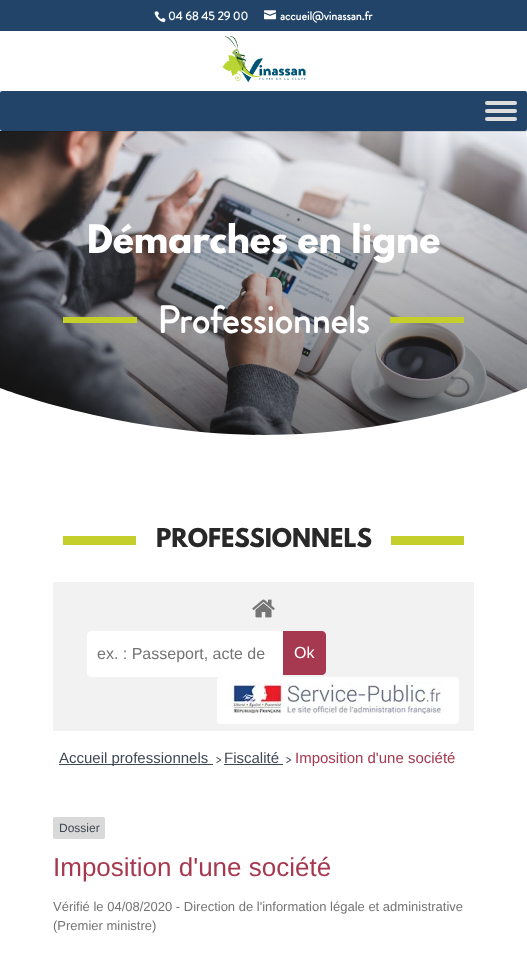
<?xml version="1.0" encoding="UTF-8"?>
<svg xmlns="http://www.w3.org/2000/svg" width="527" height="955">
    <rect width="100%" height="100%" fill="#FFFFFF"/>
    <rect x="0" y="0" width="527" height="31" fill="#224469"/>
    <image x="154" y="11" width="12" height="12" href="img_01.png"/>
    <text x="168" y="20" font-family="Brandon Grotesque" font-size="12" font-weight="700" fill="#FFFFFF">04 68 45 29 00</text>
    <image x="264" y="10" width="12" height="10" href="img_02.png"/>
    <text x="280" y="20" font-family="Brandon Grotesque" font-size="12" font-weight="700" fill="#FFFFFF">accueil@vinassan.fr</text>
    <image x="0" y="131" width="527" height="304" href="img_04.png"/>
    <rect x="0" y="131" width="527" height="1" fill="#000000" fill-opacity="0.1"/>
    <image x="221" y="36" width="85" height="47" href="img_03.png"/>
    <rect x="0" y="91" width="527" height="40" rx="2" fill="#224469"/>
    <rect x="485" y="101" width="32" height="4" rx="2" fill="#DDDDDD"/>
    <rect x="485" y="109" width="32" height="4" rx="2" fill="#DDDDDD"/>
    <rect x="485" y="117" width="32" height="4" rx="2" fill="#DDDDDD"/>
    <text x="87" y="253" font-family="League Spartan" font-size="35" font-weight="700" fill="#FFFFFF">Démarches en ligne</text>
    <rect x="63" y="317" width="74" height="6" fill="#C4CF2C"/>
    <text x="157" y="333" font-family="Brandon Grotesque" font-size="38" font-weight="700" fill="#FFFFFF">Professionnels</text>
    <rect x="390" y="317" width="74" height="6" fill="#C4CF2C"/>
    <path d="M 527 435 V 388 C 527 388 409 435 264 435 C 118 434 0 388 0 388 V 435 Z" fill="#FFFFFF"/>
    <rect x="63" y="536" width="73" height="9" fill="#C4CF2C"/>
    <text x="156" y="547" font-family="League Spartan" font-size="23" font-weight="700" fill="#282828">PROFESSIONNELS</text>
    <rect x="391" y="536" width="73" height="9" fill="#C4CF2C"/>
    <rect x="53" y="582" width="421" height="149" fill="#F2F2F2"/>
    <image x="252" y="599" width="23" height="19" href="img_05.png"/>
    <path d="M 91 631 H 283 V 677 H 91 C 89 677 87 675 87 673 V 635 C 87 633 89 631 91 631 Z" fill="#FFFFFF"/>
    <text x="97" y="659" font-family="Liberation Sans" font-size="16" fill="#757575">ex. : Passeport, acte de</text>
    <path d="M 283 631 H 322 C 324 631 326 633 326 635 V 671 C 326 673 324 675 322 675 H 283 Z" fill="#A63950"/>
    <text x="294" y="658" font-family="Liberation Sans" font-size="16" fill="#FFFFFF">Ok</text>
    <rect x="217" y="677" width="242" height="47" rx="4" fill="#FFFFFF"/>
    <image x="228" y="682" width="216" height="32" href="img_06.png"/>
    <rect x="59" y="764" width="154" height="1" fill="#414856"/>
    <text x="59" y="763" font-family="Liberation Sans" font-size="15" fill="#414856">Accueil professionnels</text>
    <text x="216" y="763" font-family="Brandon Grotesque" font-size="13" fill="#414856">&gt;</text>
    <text x="224" y="763" font-family="Liberation Sans" font-size="15" fill="#414856">Fiscalité</text>
    <text x="286" y="763" font-family="Brandon Grotesque" font-size="13" fill="#414856">&gt;</text>
    <rect x="224" y="764" width="59" height="1" fill="#414856"/>
    <text x="295" y="763" font-family="Liberation Sans" font-size="15" fill="#A63950">Imposition d'une société</text>
    <rect x="53" y="817" width="52" height="22" rx="2" fill="#D9D9D9"/>
    <text x="59" y="832" font-family="Liberation Sans" font-size="12" fill="#414856">Dossier</text>
    <text x="53" y="876" font-family="Liberation Sans" font-size="26" fill="#A63950">Imposition d'une société</text>
    <text font-family="Liberation Sans" font-size="13" fill="#757575">
        <tspan x="53" y="911">Vérifié le 04/08/2020 - Direction de l'information légale et administrative</tspan>
        <tspan x="53" y="930">(Premier ministre)</tspan>
    </text>
</svg>
